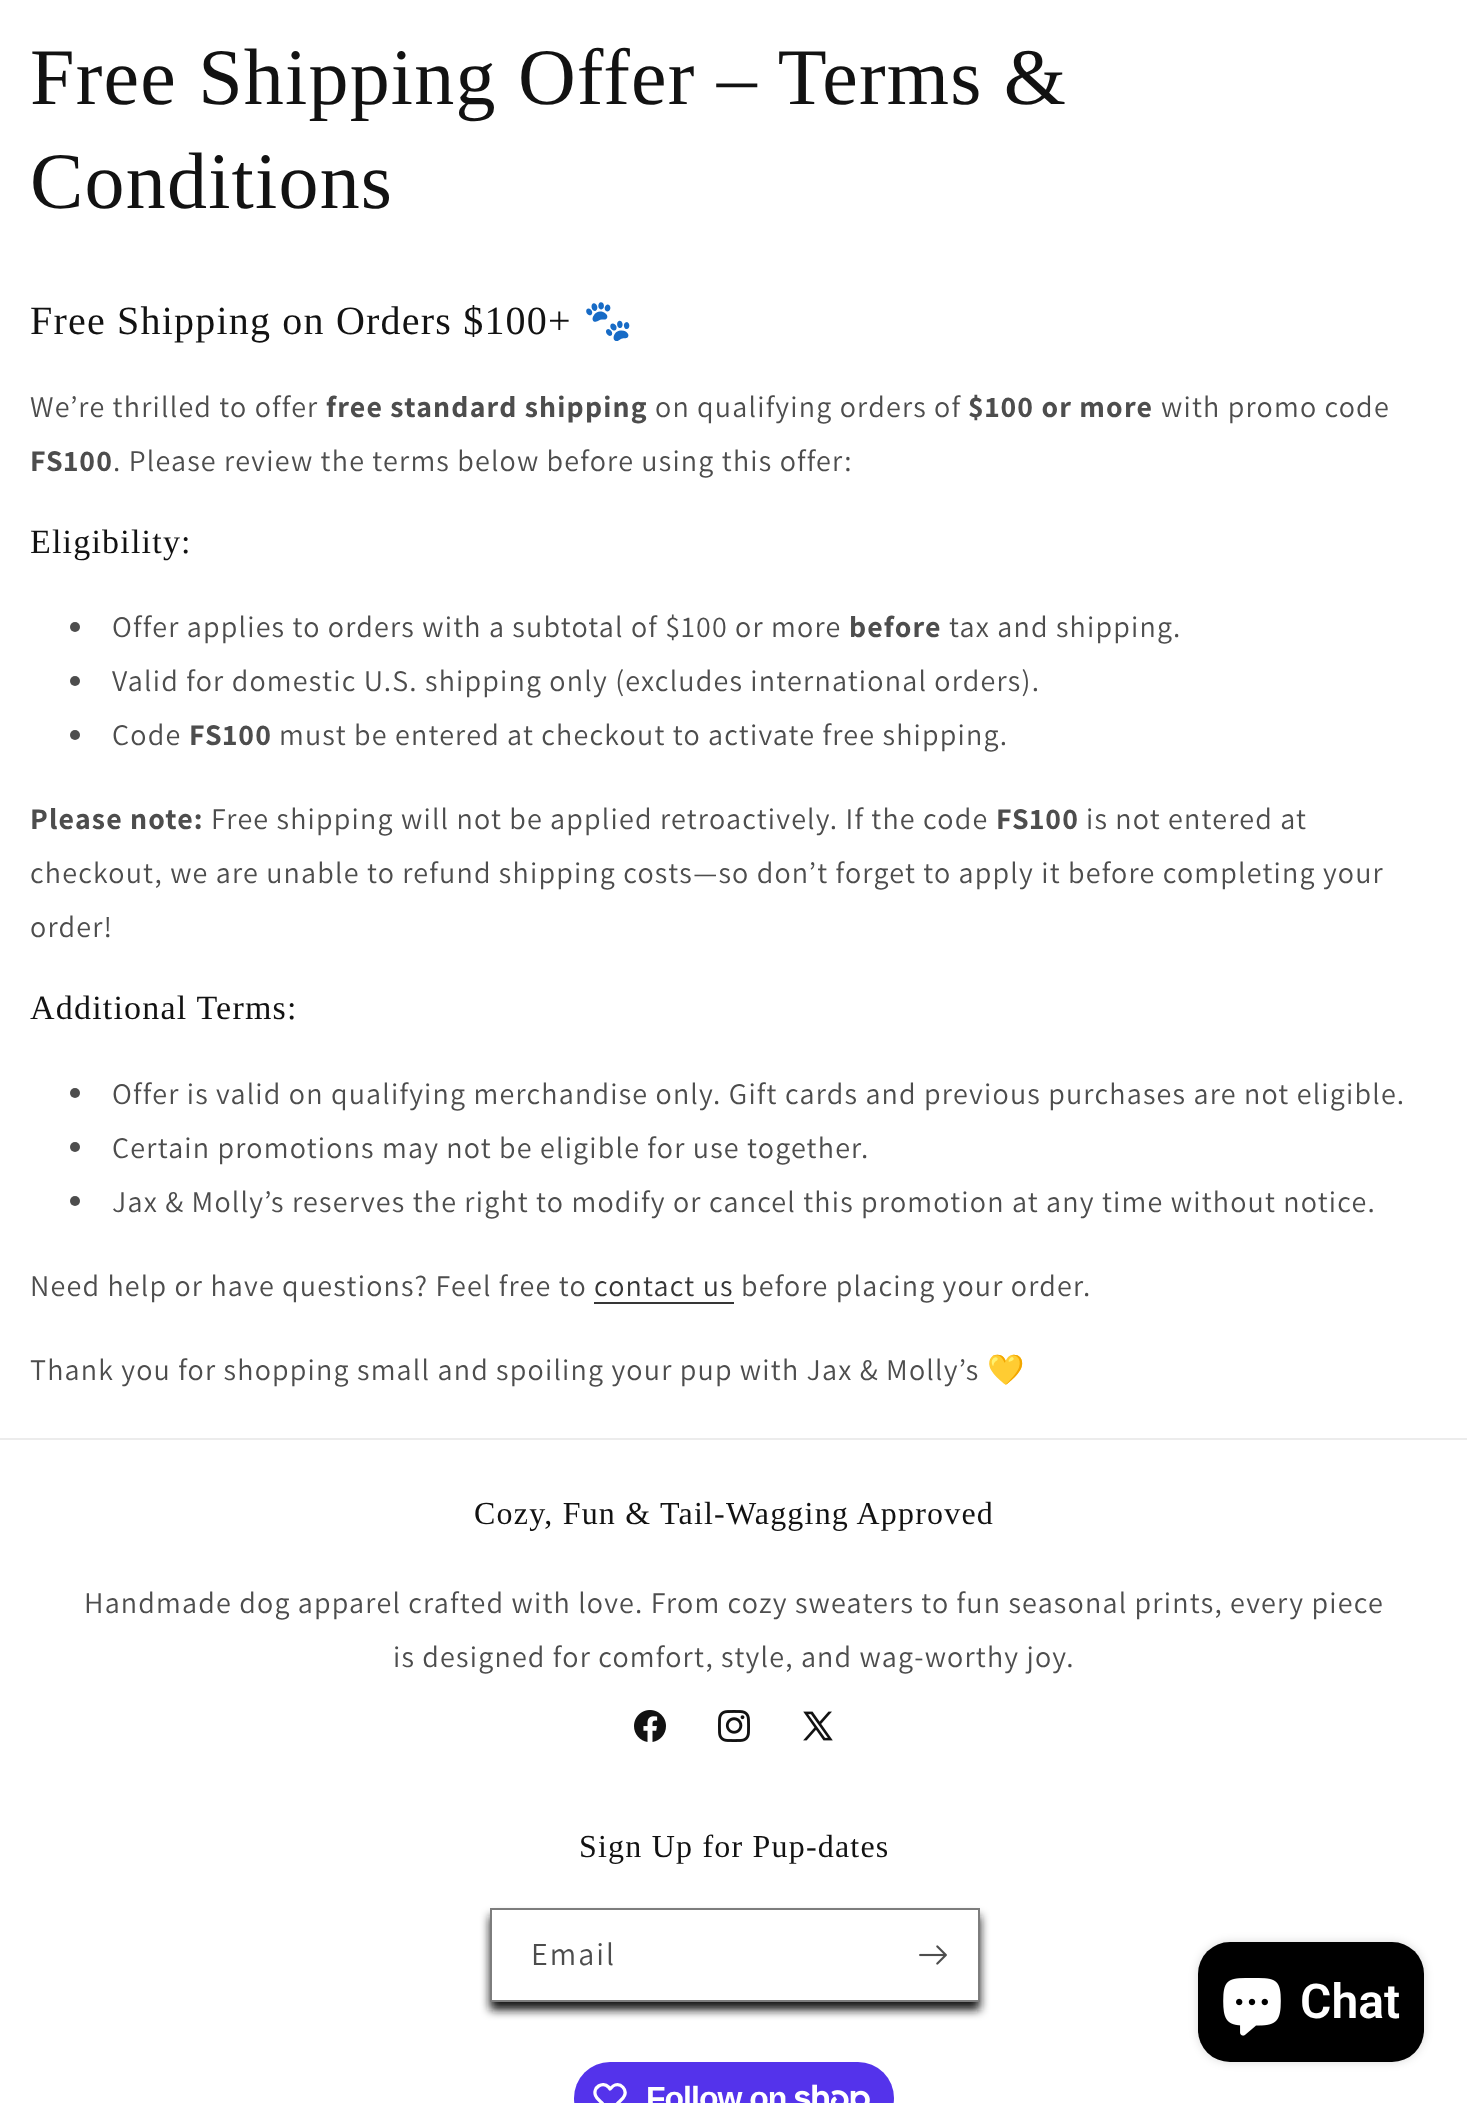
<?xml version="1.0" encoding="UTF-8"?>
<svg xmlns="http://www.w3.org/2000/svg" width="1467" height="2103">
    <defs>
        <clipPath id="clip1"><path d="M 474 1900 H 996 V 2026 H 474 Z M 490 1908 H 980 V 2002 H 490 Z" clip-rule="evenodd"/></clipPath>
        <filter id="blur1" x="-50%" y="-200%" width="200%" height="500%"><feGaussianBlur stdDeviation="5"/></filter>
    </defs>
    <rect width="100%" height="100%" fill="#FFFFFF"/>
    <text font-family="Liberation Serif" font-size="80" letter-spacing="1.2" fill="#121212">
        <tspan x="30" y="104">Free Shipping Offer – Terms &amp;</tspan>
        <tspan x="30" y="208">Conditions</tspan>
    </text>
    <text x="30" y="334" font-family="Liberation Serif" font-size="40" letter-spacing="1.2" fill="#121212">Free Shipping on Orders $100+</text>
    <text x="583" y="334" font-family="Noto Color Emoji" font-size="40" letter-spacing="1.2" fill="#121212">🐾</text>
    <text x="30" y="417" font-family="Assistant" font-size="30" letter-spacing="1.2" fill="#4D4D4D">We’re thrilled to offer</text>
    <text x="326" y="417" font-family="Assistant" font-size="30" font-weight="700" letter-spacing="1.2" fill="#4D4D4D">free standard shipping</text>
    <text x="655" y="417" font-family="Assistant" font-size="30" letter-spacing="1.2" fill="#4D4D4D">on qualifying orders of</text>
    <text x="968" y="417" font-family="Assistant" font-size="30" font-weight="700" letter-spacing="1.2" fill="#4D4D4D">$100 or more</text>
    <text x="1161" y="417" font-family="Assistant" font-size="30" letter-spacing="1.2" fill="#4D4D4D">with promo code</text>
    <text x="30" y="471" font-family="Assistant" font-size="30" font-weight="700" letter-spacing="1.2" fill="#4D4D4D">FS100</text>
    <text x="113" y="471" font-family="Assistant" font-size="30" letter-spacing="1.2" fill="#4D4D4D">. Please review the terms below before using this offer:</text>
    <text x="30" y="553" font-family="Liberation Serif" font-size="34" letter-spacing="1.2" fill="#121212">Eligibility:</text>
    <circle cx="75" cy="627" r="5" fill="#4D4D4D"/>
    <text x="112" y="637" font-family="Assistant" font-size="30" letter-spacing="1.2" fill="#4D4D4D">Offer applies to orders with a subtotal of $100 or more</text>
    <text x="849" y="637" font-family="Assistant" font-size="30" font-weight="700" letter-spacing="1.2" fill="#4D4D4D">before</text>
    <text x="949" y="637" font-family="Assistant" font-size="30" letter-spacing="1.2" fill="#4D4D4D">tax and shipping.</text>
    <circle cx="75" cy="681" r="5" fill="#4D4D4D"/>
    <text x="112" y="691" font-family="Assistant" font-size="30" letter-spacing="1.2" fill="#4D4D4D">Valid for domestic U.S. shipping only (excludes international orders).</text>
    <circle cx="75" cy="735" r="5" fill="#4D4D4D"/>
    <text x="112" y="745" font-family="Assistant" font-size="30" letter-spacing="1.2" fill="#4D4D4D">Code</text>
    <text x="189" y="745" font-family="Assistant" font-size="30" font-weight="700" letter-spacing="1.2" fill="#4D4D4D">FS100</text>
    <text x="279" y="745" font-family="Assistant" font-size="30" letter-spacing="1.2" fill="#4D4D4D">must be entered at checkout to activate free shipping.</text>
    <text x="30" y="829" font-family="Assistant" font-size="30" font-weight="700" letter-spacing="1.2" fill="#4D4D4D">Please note:</text>
    <text x="211" y="829" font-family="Assistant" font-size="30" letter-spacing="1.2" fill="#4D4D4D">Free shipping will not be applied retroactively. If the code</text>
    <text x="996" y="829" font-family="Assistant" font-size="30" font-weight="700" letter-spacing="1.2" fill="#4D4D4D">FS100</text>
    <text x="1086" y="829" font-family="Assistant" font-size="30" letter-spacing="1.2" fill="#4D4D4D">is not entered at</text>
    <text font-family="Assistant" font-size="30" letter-spacing="1.2" fill="#4D4D4D">
        <tspan x="30" y="883">checkout, we are unable to refund shipping costs—so don’t forget to apply it before completing your</tspan>
        <tspan x="30" y="937">order!</tspan>
    </text>
    <text x="30" y="1019" font-family="Liberation Serif" font-size="34" letter-spacing="1.2" fill="#121212">Additional Terms:</text>
    <circle cx="75" cy="1093" r="5" fill="#4D4D4D"/>
    <text x="112" y="1104" font-family="Assistant" font-size="30" letter-spacing="1.2" fill="#4D4D4D">Offer is valid on qualifying merchandise only. Gift cards and previous purchases are not eligible.</text>
    <circle cx="75" cy="1147" r="5" fill="#4D4D4D"/>
    <text x="112" y="1158" font-family="Assistant" font-size="30" letter-spacing="1.2" fill="#4D4D4D">Certain promotions may not be eligible for use together.</text>
    <circle cx="75" cy="1201" r="5" fill="#4D4D4D"/>
    <text x="112" y="1212" font-family="Assistant" font-size="30" letter-spacing="1.2" fill="#4D4D4D">Jax &amp; Molly’s reserves the right to modify or cancel this promotion at any time without notice.</text>
    <text x="30" y="1296" font-family="Assistant" font-size="30" letter-spacing="1.2" fill="#4D4D4D">Need help or have questions? Feel free to</text>
    <text x="594" y="1296" font-family="Assistant" font-size="30" letter-spacing="1.2" fill="#363636">contact us</text>
    <rect x="594" y="1302" width="140" height="2" fill="#363636"/>
    <text x="741" y="1296" font-family="Assistant" font-size="30" letter-spacing="1.2" fill="#4D4D4D">before placing your order.</text>
    <text x="30" y="1380" font-family="Assistant" font-size="30" letter-spacing="1.2" fill="#4D4D4D">Thank you for shopping small and spoiling your pup with Jax &amp; Molly’s</text>
    <text x="987" y="1380" font-family="Noto Color Emoji" font-size="30" letter-spacing="1.2" fill="#4D4D4D">💛</text>
    <rect x="0" y="1438" width="1467" height="2" fill="#ECECEC"/>
    <text x="474" y="1524" font-family="Liberation Serif" font-size="32" letter-spacing="1.2" fill="#121212">Cozy, Fun &amp; Tail-Wagging Approved</text>
    <text x="84" y="1613" font-family="Assistant" font-size="30" letter-spacing="1.2" fill="#4D4D4D">Handmade dog apparel crafted with love. From cozy sweaters to fun seasonal prints, every piece</text>
    <text x="393" y="1667" font-family="Assistant" font-size="30" letter-spacing="1.2" fill="#4D4D4D">is designed for comfort, style, and wag-worthy joy.</text>
    <image x="634" y="1710" width="32" height="32" href="img_01.png"/>
    <image x="718" y="1710" width="32" height="32" href="img_02.png"/>
    <image x="803" y="1711" width="30" height="30" href="img_03.png"/>
    <text x="579" y="1857" font-family="Liberation Serif" font-size="32" letter-spacing="1.2" fill="#121212">Sign Up for Pup-dates</text>
    <g clip-path="url(#clip1)">
        <rect x="490" y="1916" width="490" height="94" fill="#121212" filter="url(#blur1)"/>
    </g>
    <rect x="491" y="1909" width="488" height="92" fill="none" stroke="#7D7D7D" stroke-width="2"/>
    <text x="531" y="1965" font-family="Assistant" font-size="32" letter-spacing="2" fill="#4D4D4D">Email</text>
    <image x="919" y="1945" width="28" height="20" href="img_04.png"/>
    <rect x="574" y="2062" width="320" height="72" rx="36" fill="#5433EB"/>
    <path d="M 608.5 2087 L 610 2089 C 611.5 2087.5 613 2085.5 615 2085 C 621 2083 627 2089.5 624.5 2095.5 C 623.5 2098.5 620.5 2100.5 618.5 2102.5 L 610 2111.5 L 601.5 2102.5 C 599.5 2100.5 596.5 2098.5 595.5 2095.5 C 592.5 2087.5 602.5 2081 608.5 2087 Z" fill="none" stroke="#FFFFFF" stroke-width="3.3" stroke-linejoin="round"/>
    <text x="646" y="2109" font-family="Liberation Sans" font-size="32" font-weight="700" letter-spacing="-1" fill="#FFFFFF">Follow on</text>
    <image x="795" y="2084" width="75" height="19" href="img_05.png"/>
    <rect x="1198" y="1942" width="226" height="120" rx="32" fill="#000000" fill-opacity="0.15" filter="url(#blur1)"/>
    <rect x="1198" y="1942" width="226" height="120" rx="32" fill="#000000"/>
    <image x="1223" y="1978" width="58" height="58" href="img_06.png"/>
    <text x="1300" y="2018" font-family="Roboto" font-size="48" font-weight="600" fill="#FFFFFF">Chat</text>
</svg>
